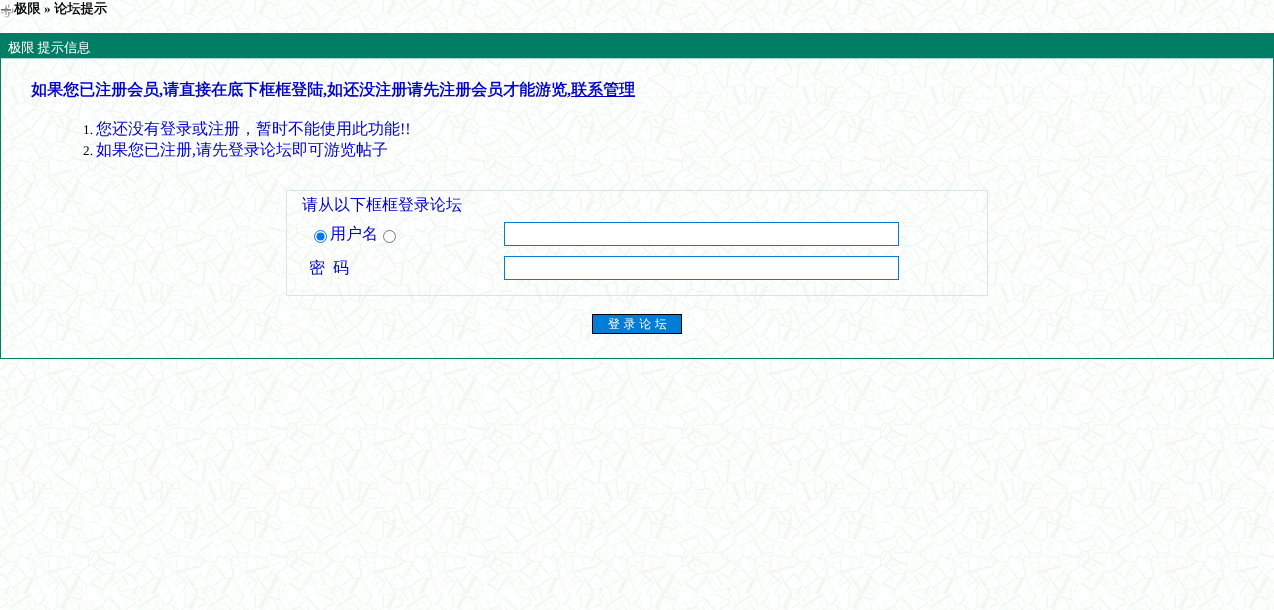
<?xml version="1.0" encoding="UTF-8"?>
<svg xmlns="http://www.w3.org/2000/svg" width="1274" height="610">
    <rect width="100%" height="100%" fill="#FFFFFF"/>
    <image x="0" y="0" width="1274" height="610" href="img_01.png"/>
    <image x="0" y="4" width="14" height="14" href="img_02.png"/>
    <text x="14" y="13" font-family="WenQuanYi Zen Hei" font-size="13.25" font-weight="700" fill="#000000">极限</text>
    <text x="44" y="13" font-family="Liberation Serif" font-size="13.25" font-weight="700" fill="#000000">»</text>
    <text x="54" y="13" font-family="WenQuanYi Zen Hei" font-size="13.25" font-weight="700" fill="#000000">论坛提示</text>
    <rect x="0.5" y="33.5" width="1273" height="325" fill="none" stroke="#007D65"/>
    <rect x="1" y="34" width="1272" height="24" fill="#007D65"/>
    <rect x="1" y="58" width="1272" height="1" fill="#AED6DB"/>
    <text x="8" y="52" word-spacing="-1" font-family="WenQuanYi Zen Hei" font-size="13.25" font-weight="500" fill="#FFFFFF">极限 提示信息</text>
    <text x="31" y="95" font-family="WenQuanYi Zen Hei" font-size="16" font-weight="700" fill="#0000CC">如果您已注册会员</text>
    <text x="159" y="95" font-family="Liberation Serif" font-size="16" font-weight="700" fill="#0000CC">,</text>
    <text x="163" y="95" font-family="WenQuanYi Zen Hei" font-size="16" font-weight="700" fill="#0000CC">请直接在底下框框登陆</text>
    <text x="323" y="95" font-family="Liberation Serif" font-size="16" font-weight="700" fill="#0000CC">,</text>
    <text x="327" y="95" font-family="WenQuanYi Zen Hei" font-size="16" font-weight="700" fill="#0000CC">如还没注册请先注册会员才能游览</text>
    <text x="567" y="95" font-family="Liberation Serif" font-size="16" font-weight="700" fill="#0000CC">,</text>
    <rect x="571" y="96" width="64" height="1" fill="#0000CC"/>
    <text x="571" y="95" font-family="WenQuanYi Zen Hei" font-size="16" font-weight="700" fill="#0000CC">联系管理</text>
    <text x="83" y="134" font-family="Liberation Serif" font-size="13.25" fill="#000000">1.</text>
    <text x="96" y="134" font-family="WenQuanYi Zen Hei" font-size="16" font-weight="500" fill="#0000CC">您还没有登录或注册，暂时不能使用此功能</text>
    <text x="400" y="134" font-family="Liberation Serif" font-size="16" fill="#0000CC">!!</text>
    <text x="83" y="155" font-family="Liberation Serif" font-size="13.25" fill="#000000">2.</text>
    <text x="96" y="155" font-family="WenQuanYi Zen Hei" font-size="16" font-weight="500" fill="#0000CC">如果您已注册</text>
    <text x="192" y="155" font-family="Liberation Serif" font-size="16" fill="#0000CC">,</text>
    <text x="196" y="155" font-family="WenQuanYi Zen Hei" font-size="16" font-weight="500" fill="#0000CC">请先登录论坛即可游览帖子</text>
    <rect x="286.5" y="190.5" width="701" height="105" fill="none" stroke="#D5E5E8"/>
    <text x="302" y="210" font-family="WenQuanYi Zen Hei" font-size="16" font-weight="500" fill="#0000CC">请从以下框框登录论坛</text>
    <circle cx="320.5" cy="236.5" r="6" fill="#FFFFFF" stroke="#0075FF"/>
    <circle cx="320.5" cy="236.5" r="4" fill="#0075FF"/>
    <text x="330" y="239" font-family="WenQuanYi Zen Hei" font-size="16" font-weight="500" fill="#0000CC">用户名</text>
    <circle cx="389.5" cy="236.5" r="6" fill="#FFFFFF" stroke="#767676"/>
    <rect x="504.5" y="222.5" width="394" height="23" fill="#FFFFFF" stroke="#007DD6"/>
    <text x="309" y="273" font-family="WenQuanYi Zen Hei" font-size="16" font-weight="500" fill="#0000CC">密</text>
    <text x="333" y="273" font-family="WenQuanYi Zen Hei" font-size="16" font-weight="500" fill="#0000CC">码</text>
    <rect x="504.5" y="256.5" width="394" height="23" fill="#FFFFFF" stroke="#007DD6"/>
    <rect x="592.5" y="314.5" width="89" height="19" fill="#007DD6" stroke="#000000"/>
    <text x="608" y="328" font-family="WenQuanYi Zen Hei" font-size="12" font-weight="500" fill="#FFFFFF">登 录 论 坛</text>
</svg>
